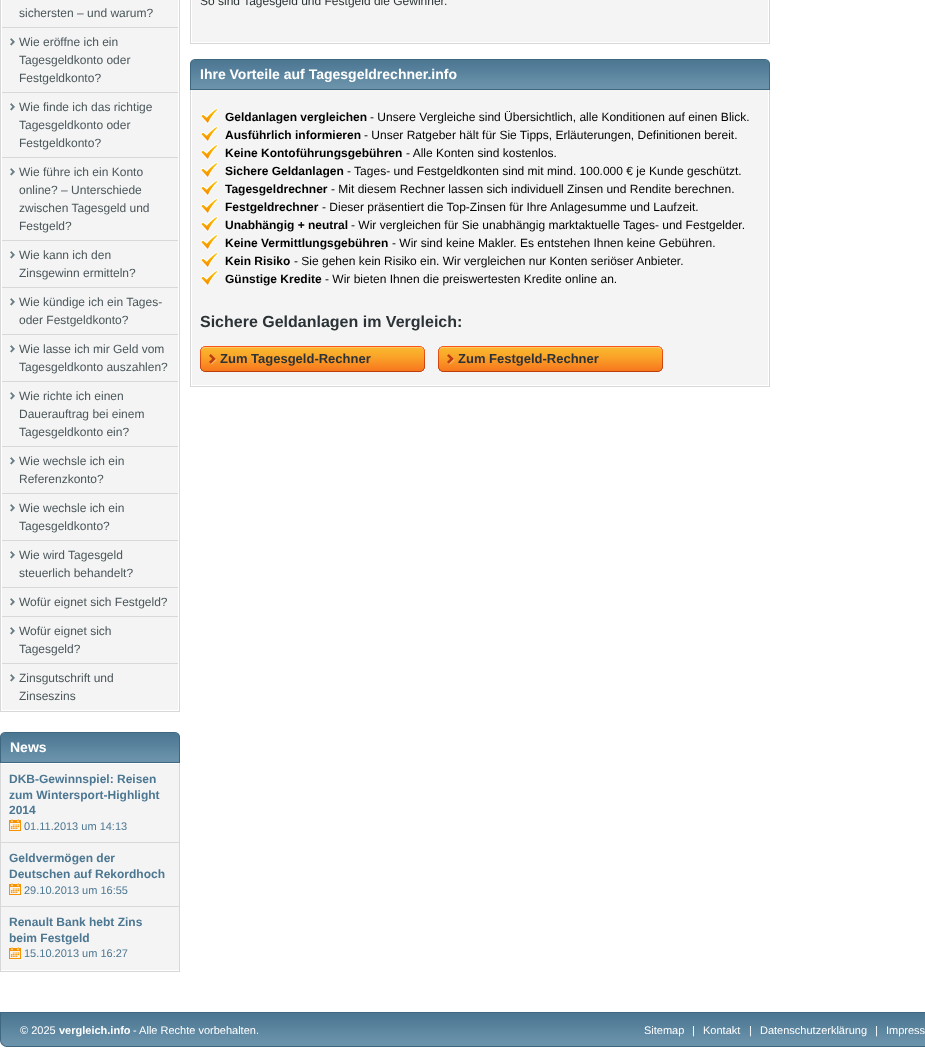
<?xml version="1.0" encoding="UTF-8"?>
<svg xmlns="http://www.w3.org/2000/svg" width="925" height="1062">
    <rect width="100%" height="100%" fill="#FFFFFF"/>
    <rect x="2" y="0" width="176" height="710" fill="#F4F4F4"/>
    <rect x="179" y="0" width="1" height="712" fill="#D6D8D9"/>
    <rect x="0" y="711" width="180" height="1" fill="#D6D8D9"/>
    <rect x="0" y="0" width="1" height="712" fill="#D6D8D9"/>
    <text x="19" y="17" font-family="Liberation Sans" font-size="12" fill="#4A565A">sichersten – und warum?</text>
    <image x="10" y="38" width="5" height="8" href="img_01.png"/>
    <rect x="2" y="27" width="176" height="1" fill="#D6D8D9"/>
    <text font-family="Liberation Sans" font-size="12" fill="#4A565A">
        <tspan x="19" y="46">Wie eröffne ich ein</tspan>
        <tspan x="19" y="64">Tagesgeldkonto oder</tspan>
        <tspan x="19" y="82">Festgeldkonto?</tspan>
    </text>
    <image x="10" y="103" width="5" height="8" href="img_01.png"/>
    <rect x="2" y="92" width="176" height="1" fill="#D6D8D9"/>
    <text font-family="Liberation Sans" font-size="12" fill="#4A565A">
        <tspan x="19" y="111">Wie finde ich das richtige</tspan>
        <tspan x="19" y="129">Tagesgeldkonto oder</tspan>
        <tspan x="19" y="147">Festgeldkonto?</tspan>
    </text>
    <image x="10" y="168" width="5" height="8" href="img_01.png"/>
    <rect x="2" y="157" width="176" height="1" fill="#D6D8D9"/>
    <text font-family="Liberation Sans" font-size="12" fill="#4A565A">
        <tspan x="19" y="176">Wie führe ich ein Konto</tspan>
        <tspan x="19" y="194">online? – Unterschiede</tspan>
        <tspan x="19" y="212">zwischen Tagesgeld und</tspan>
        <tspan x="19" y="230">Festgeld?</tspan>
    </text>
    <image x="10" y="251" width="5" height="8" href="img_01.png"/>
    <rect x="2" y="240" width="176" height="1" fill="#D6D8D9"/>
    <text font-family="Liberation Sans" font-size="12" fill="#4A565A">
        <tspan x="19" y="259">Wie kann ich den</tspan>
        <tspan x="19" y="277">Zinsgewinn ermitteln?</tspan>
    </text>
    <image x="10" y="298" width="5" height="8" href="img_01.png"/>
    <rect x="2" y="287" width="176" height="1" fill="#D6D8D9"/>
    <text font-family="Liberation Sans" font-size="12" fill="#4A565A">
        <tspan x="19" y="306">Wie kündige ich ein Tages-</tspan>
        <tspan x="19" y="324">oder Festgeldkonto?</tspan>
    </text>
    <image x="10" y="345" width="5" height="8" href="img_01.png"/>
    <rect x="2" y="334" width="176" height="1" fill="#D6D8D9"/>
    <text font-family="Liberation Sans" font-size="12" fill="#4A565A">
        <tspan x="19" y="353">Wie lasse ich mir Geld vom</tspan>
        <tspan x="19" y="371">Tagesgeldkonto auszahlen?</tspan>
    </text>
    <image x="10" y="392" width="5" height="8" href="img_01.png"/>
    <rect x="2" y="381" width="176" height="1" fill="#D6D8D9"/>
    <text font-family="Liberation Sans" font-size="12" fill="#4A565A">
        <tspan x="19" y="400">Wie richte ich einen</tspan>
        <tspan x="19" y="418">Dauerauftrag bei einem</tspan>
        <tspan x="19" y="436">Tagesgeldkonto ein?</tspan>
    </text>
    <image x="10" y="457" width="5" height="8" href="img_01.png"/>
    <rect x="2" y="446" width="176" height="1" fill="#D6D8D9"/>
    <text font-family="Liberation Sans" font-size="12" fill="#4A565A">
        <tspan x="19" y="465">Wie wechsle ich ein</tspan>
        <tspan x="19" y="483">Referenzkonto?</tspan>
    </text>
    <image x="10" y="504" width="5" height="8" href="img_01.png"/>
    <rect x="2" y="493" width="176" height="1" fill="#D6D8D9"/>
    <text font-family="Liberation Sans" font-size="12" fill="#4A565A">
        <tspan x="19" y="512">Wie wechsle ich ein</tspan>
        <tspan x="19" y="530">Tagesgeldkonto?</tspan>
    </text>
    <image x="10" y="551" width="5" height="8" href="img_01.png"/>
    <rect x="2" y="540" width="176" height="1" fill="#D6D8D9"/>
    <text font-family="Liberation Sans" font-size="12" fill="#4A565A">
        <tspan x="19" y="559">Wie wird Tagesgeld</tspan>
        <tspan x="19" y="577">steuerlich behandelt?</tspan>
    </text>
    <image x="10" y="598" width="5" height="8" href="img_01.png"/>
    <rect x="2" y="587" width="176" height="1" fill="#D6D8D9"/>
    <text x="19" y="606" font-family="Liberation Sans" font-size="12" fill="#4A565A">Wofür eignet sich Festgeld?</text>
    <image x="10" y="627" width="5" height="8" href="img_01.png"/>
    <rect x="2" y="616" width="176" height="1" fill="#D6D8D9"/>
    <text font-family="Liberation Sans" font-size="12" fill="#4A565A">
        <tspan x="19" y="635">Wofür eignet sich</tspan>
        <tspan x="19" y="653">Tagesgeld?</tspan>
    </text>
    <image x="10" y="674" width="5" height="8" href="img_01.png"/>
    <rect x="2" y="663" width="176" height="1" fill="#D6D8D9"/>
    <text font-family="Liberation Sans" font-size="12" fill="#4A565A">
        <tspan x="19" y="682">Zinsgutschrift und</tspan>
        <tspan x="19" y="700">Zinseszins</tspan>
    </text>
    <image x="0" y="732" width="180" height="31" href="img_02.png"/>
    <text x="10" y="752" font-family="Liberation Sans" font-size="14" font-weight="700" fill="#FFFFFF">News</text>
    <rect x="1" y="764" width="178" height="206" fill="#F4F4F4"/>
    <rect x="179" y="763" width="1" height="209" fill="#D6D8D9"/>
    <rect x="0" y="971" width="180" height="1" fill="#D6D8D9"/>
    <rect x="0" y="763" width="1" height="209" fill="#D6D8D9"/>
    <text font-family="Liberation Sans" font-size="12" font-weight="700" fill="#4C7792">
        <tspan x="9" y="783">DKB-Gewinnspiel: Reisen</tspan>
        <tspan x="9" y="799">zum Wintersport-Highlight</tspan>
        <tspan x="9" y="814">2014</tspan>
    </text>
    <image x="9" y="819" width="12" height="12" href="img_03.png"/>
    <text x="24" y="830" font-family="Liberation Sans" font-size="11" fill="#4C7792">01.11.2013 um 14:13</text>
    <rect x="1" y="842" width="178" height="1" fill="#DBD9D6"/>
    <text font-family="Liberation Sans" font-size="12" font-weight="700" fill="#4C7792">
        <tspan x="9" y="862">Geldvermögen der</tspan>
        <tspan x="9" y="878">Deutschen auf Rekordhoch</tspan>
    </text>
    <image x="9" y="883" width="12" height="12" href="img_03.png"/>
    <text x="24" y="894" font-family="Liberation Sans" font-size="11" fill="#4C7792">29.10.2013 um 16:55</text>
    <rect x="1" y="906" width="178" height="1" fill="#DBD9D6"/>
    <text font-family="Liberation Sans" font-size="12" font-weight="700" fill="#4C7792">
        <tspan x="9" y="926">Renault Bank hebt Zins</tspan>
        <tspan x="9" y="942">beim Festgeld</tspan>
    </text>
    <image x="9" y="947" width="12" height="12" href="img_03.png"/>
    <text x="24" y="957" font-family="Liberation Sans" font-size="11" fill="#4C7792">15.10.2013 um 16:27</text>
    <rect x="192" y="0" width="576" height="42" fill="#F4F4F4"/>
    <rect x="769" y="0" width="1" height="44" fill="#D6D8D9"/>
    <rect x="190" y="43" width="580" height="1" fill="#D6D8D9"/>
    <rect x="190" y="0" width="1" height="44" fill="#D6D8D9"/>
    <text x="200" y="5" font-family="Liberation Sans" font-size="12" fill="#2C3336">So sind Tagesgeld und Festgeld die Gewinner.</text>
    <image x="190" y="59" width="575" height="31" href="img_04.png"/>
    <text x="200" y="79" font-family="Liberation Sans" font-size="14" font-weight="700" fill="#FFFFFF">Ihre Vorteile auf Tagesgeldrechner.info</text>
    <image x="765" y="59" width="5" height="31" href="img_05.png"/>
    <rect x="192" y="90" width="576" height="295" fill="#F4F4F4"/>
    <rect x="769" y="90" width="1" height="297" fill="#D6D8D9"/>
    <rect x="190" y="386" width="580" height="1" fill="#D6D8D9"/>
    <rect x="190" y="90" width="1" height="297" fill="#D6D8D9"/>
    <image x="201" y="108" width="17" height="16" href="img_06.png"/>
    <text x="225" y="121" font-family="Liberation Sans" font-size="12" font-weight="700" fill="#000000">Geldanlagen vergleichen</text>
    <text x="370" y="121" font-family="Liberation Sans" font-size="12" fill="#000000">- Unsere Vergleiche sind Übersichtlich, alle Konditionen auf einen Blick.</text>
    <image x="201" y="126" width="17" height="16" href="img_06.png"/>
    <text x="225" y="139" font-family="Liberation Sans" font-size="12" font-weight="700" fill="#000000">Ausführlich informieren</text>
    <text x="364" y="139" font-family="Liberation Sans" font-size="12" fill="#000000">- Unser Ratgeber hält für Sie Tipps, Erläuterungen, Definitionen bereit.</text>
    <image x="201" y="144" width="17" height="16" href="img_06.png"/>
    <text x="225" y="157" font-family="Liberation Sans" font-size="12" font-weight="700" fill="#000000">Keine Kontoführungsgebühren</text>
    <text x="406" y="157" font-family="Liberation Sans" font-size="12" fill="#000000">- Alle Konten sind kostenlos.</text>
    <image x="201" y="162" width="17" height="16" href="img_06.png"/>
    <text x="225" y="175" font-family="Liberation Sans" font-size="12" font-weight="700" fill="#000000">Sichere Geldanlagen</text>
    <text x="347" y="175" font-family="Liberation Sans" font-size="12" fill="#000000">- Tages- und Festgeldkonten sind mit mind. 100.000 € je Kunde geschützt.</text>
    <image x="201" y="180" width="17" height="16" href="img_06.png"/>
    <text x="225" y="193" font-family="Liberation Sans" font-size="12" font-weight="700" fill="#000000">Tagesgeldrechner</text>
    <text x="331" y="193" font-family="Liberation Sans" font-size="12" fill="#000000">- Mit diesem Rechner lassen sich individuell Zinsen und Rendite berechnen.</text>
    <image x="201" y="198" width="17" height="16" href="img_06.png"/>
    <text x="225" y="211" font-family="Liberation Sans" font-size="12" font-weight="700" fill="#000000">Festgeldrechner</text>
    <text x="322" y="211" font-family="Liberation Sans" font-size="12" fill="#000000">- Dieser präsentiert die Top-Zinsen für Ihre Anlagesumme und Laufzeit.</text>
    <image x="201" y="216" width="17" height="16" href="img_06.png"/>
    <text x="225" y="229" font-family="Liberation Sans" font-size="12" font-weight="700" fill="#000000">Unabhängig + neutral</text>
    <text x="351" y="229" font-family="Liberation Sans" font-size="12" fill="#000000">- Wir vergleichen für Sie unabhängig marktaktuelle Tages- und Festgelder.</text>
    <image x="201" y="234" width="17" height="16" href="img_06.png"/>
    <text x="225" y="247" font-family="Liberation Sans" font-size="12" font-weight="700" fill="#000000">Keine Vermittlungsgebühren</text>
    <text x="392" y="247" font-family="Liberation Sans" font-size="12" fill="#000000">- Wir sind keine Makler. Es entstehen Ihnen keine Gebühren.</text>
    <image x="201" y="252" width="17" height="16" href="img_06.png"/>
    <text x="225" y="265" font-family="Liberation Sans" font-size="12" font-weight="700" fill="#000000">Kein Risiko</text>
    <text x="294" y="265" font-family="Liberation Sans" font-size="12" fill="#000000">- Sie gehen kein Risiko ein. Wir vergleichen nur Konten seriöser Anbieter.</text>
    <image x="201" y="270" width="17" height="16" href="img_06.png"/>
    <text x="225" y="283" font-family="Liberation Sans" font-size="12" font-weight="700" fill="#000000">Günstige Kredite</text>
    <text x="325" y="283" font-family="Liberation Sans" font-size="12" fill="#000000">- Wir bieten Ihnen die preiswertesten Kredite online an.</text>
    <text x="200" y="327" font-family="Liberation Sans" font-size="16" font-weight="700" fill="#2C3336">Sichere Geldanlagen im Vergleich:</text>
    <image x="420" y="346" width="5" height="26" href="img_07.png"/>
    <image x="200" y="346" width="220" height="26" href="img_08.png"/>
    <text x="220" y="363" font-family="Liberation Sans" font-size="13" font-weight="700" fill="#2C3336">Zum Tagesgeld-Rechner</text>
    <image x="658" y="346" width="5" height="26" href="img_07.png"/>
    <image x="438" y="346" width="220" height="26" href="img_08.png"/>
    <text x="458" y="363" font-family="Liberation Sans" font-size="13" font-weight="700" fill="#2C3336">Zum Festgeld-Rechner</text>
    <image x="0" y="1012" width="925" height="35" href="img_09.png"/>
    <text x="20" y="1034" font-family="Liberation Sans" font-size="11" fill="#FFFFFF">© 2025</text>
    <text x="59" y="1034" font-family="Liberation Sans" font-size="11" font-weight="700" fill="#FFFFFF">vergleich.info</text>
    <text x="133" y="1034" font-family="Liberation Sans" font-size="11" fill="#FFFFFF">- Alle Rechte vorbehalten.</text>
    <text x="644" y="1034" font-family="Liberation Sans" font-size="11" fill="#FFFFFF">Sitemap</text>
    <text x="692" y="1034" font-family="Liberation Sans" font-size="11" fill="#FFFFFF">|</text>
    <text x="703" y="1034" font-family="Liberation Sans" font-size="11" fill="#FFFFFF">Kontakt</text>
    <text x="749" y="1034" font-family="Liberation Sans" font-size="11" fill="#FFFFFF">|</text>
    <text x="760" y="1034" font-family="Liberation Sans" font-size="11" fill="#FFFFFF">Datenschutzerklärung</text>
    <text x="875" y="1034" font-family="Liberation Sans" font-size="11" fill="#FFFFFF">|</text>
    <text x="886" y="1034" font-family="Liberation Sans" font-size="11" fill="#FFFFFF">Impress</text>
</svg>
